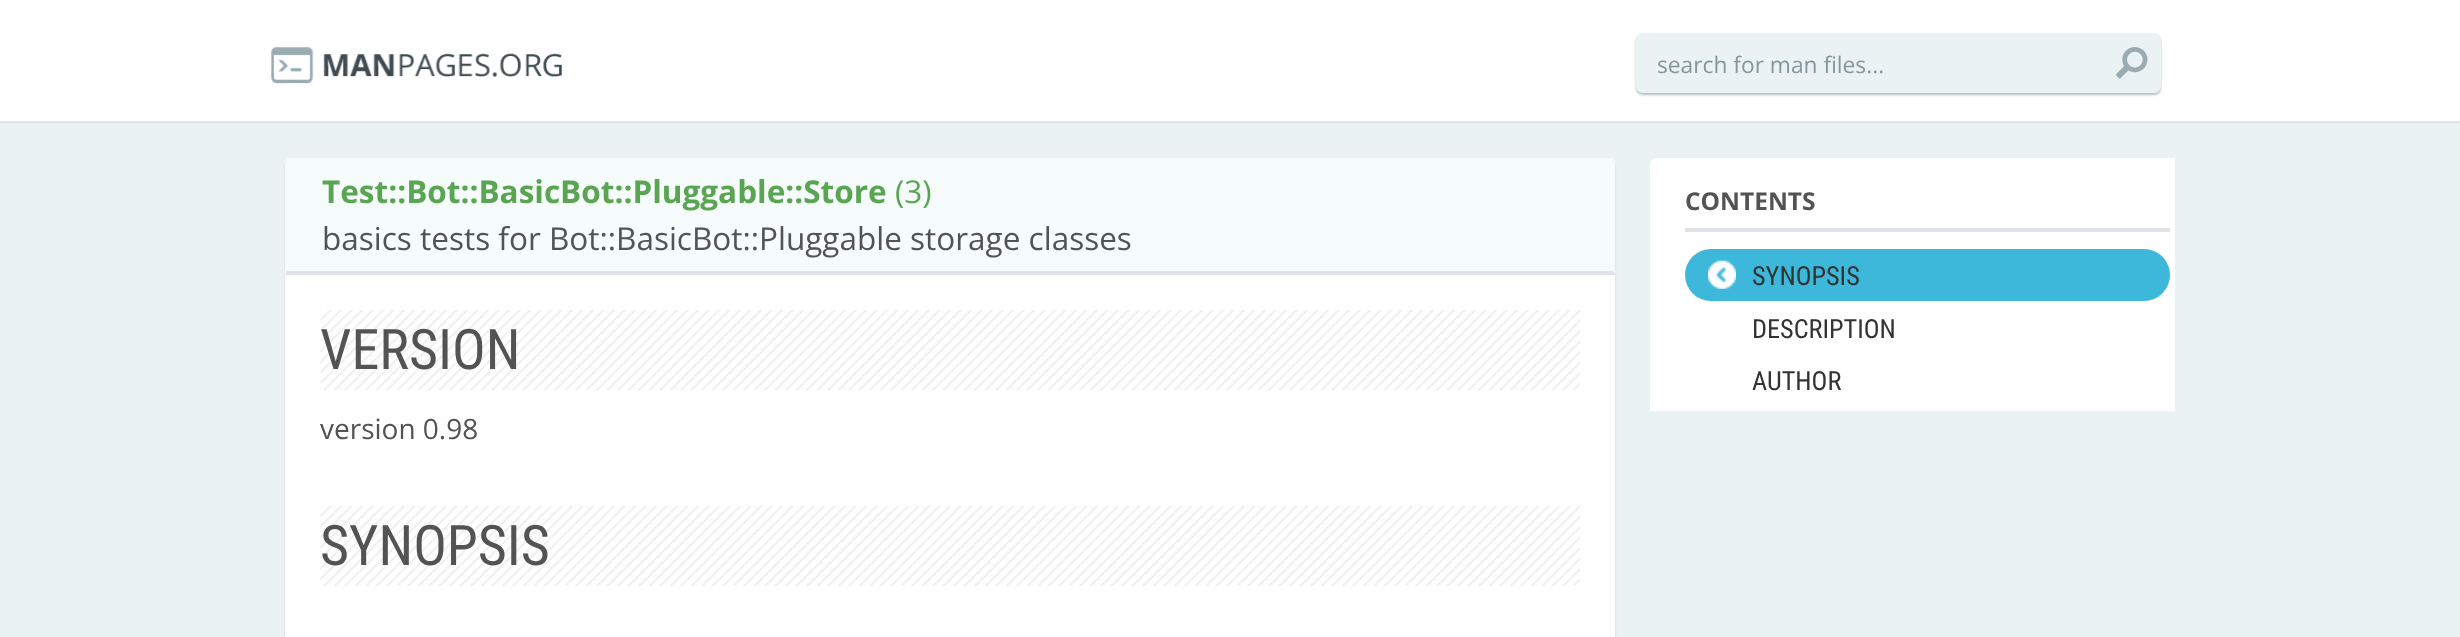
<?xml version="1.0" encoding="UTF-8"?>
<svg xmlns="http://www.w3.org/2000/svg" width="2460" height="637">
    <defs>
        <filter id="blur1" x="-50%" y="-200%" width="200%" height="500%"><feGaussianBlur stdDeviation="1"/></filter>
    </defs>
    <rect width="100%" height="100%" fill="#EAF2F4"/>
    <rect x="0" y="0" width="2460" height="121" fill="#FFFFFF"/>
    <rect x="0" y="121" width="2460" height="2" fill="#DCE5E7"/>
    <image x="271" y="47" width="291" height="37" href="img_01.png"/>
    <rect x="1636" y="35" width="525" height="60" rx="7" fill="#062F37" fill-opacity="0.3" filter="url(#blur1)"/>
    <rect x="1636" y="33" width="525" height="60" rx="7" fill="#EAF2F4"/>
    <text x="1657" y="73" font-family="Open Sans" font-size="22.75" fill="#86969D">search for man files...</text>
    <image x="2115" y="47" width="33" height="32" href="img_02.png"/>
    <rect x="285" y="159" width="1330" height="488" rx="7" fill="#000000" fill-opacity="0.1" filter="url(#blur1)"/>
    <path d="M 292 158 H 1608 C 1612 158 1615 161 1615 165 V 637 H 285 V 165 C 285 161 288 158 292 158 Z" fill="#FEFEFE"/>
    <path d="M 290 158 H 1610 C 1613 158 1615 160 1615 163 V 275 H 285 V 163 C 285 160 287 158 290 158 Z" fill="#F6FBFC"/>
    <path d="M 1615 274 V 275 H 285 L 287 271 H 1613 Z" fill="#DFE3E9"/>
    <text x="322" y="203" font-family="Open Sans" font-size="31.5" font-weight="700" fill="#59A552">Test::Bot::BasicBot::Pluggable::Store</text>
    <text x="895" y="203" font-family="Open Sans" font-size="31.5" fill="#59A552">(3)</text>
    <text x="322" y="250" font-family="Open Sans" font-size="31.5" fill="#535353">basics tests for Bot::BasicBot::Pluggable storage classes</text>
    <image x="320" y="310" width="1260" height="80" href="img_03.png"/>
    <text x="320" y="369" font-family="Roboto Condensed" font-size="56" fill="#535353">VERSION</text>
    <text x="320" y="439" font-family="Open Sans" font-size="28" fill="#535353">version 0.98</text>
    <image x="320" y="506" width="1260" height="80" href="img_03.png"/>
    <text x="320" y="565" font-family="Roboto Condensed" font-size="56" fill="#535353">SYNOPSIS</text>
    <path d="M 1657 158 H 2175 V 411 H 1650 V 165 C 1650 161 1653 158 1657 158 Z" fill="#FFFFFF"/>
    <rect x="1685" y="228" width="485" height="4" fill="#DFE3E9"/>
    <text x="1685" y="210" font-family="Open Sans" font-size="24.5" font-weight="700" fill="#535353">CONTENTS</text>
    <rect x="1685" y="249" width="485" height="52" rx="26" fill="#3DB8DB"/>
    <image x="1708" y="260" width="28" height="29" href="img_04.png"/>
    <text x="1752" y="285" font-family="Roboto Condensed" font-size="26.25" fill="#333333">SYNOPSIS</text>
    <text font-family="Roboto Condensed" font-size="26.25" fill="#333333">
        <tspan x="1752" y="338">DESCRIPTION</tspan>
        <tspan x="1752" y="390">AUTHOR</tspan>
    </text>
</svg>
